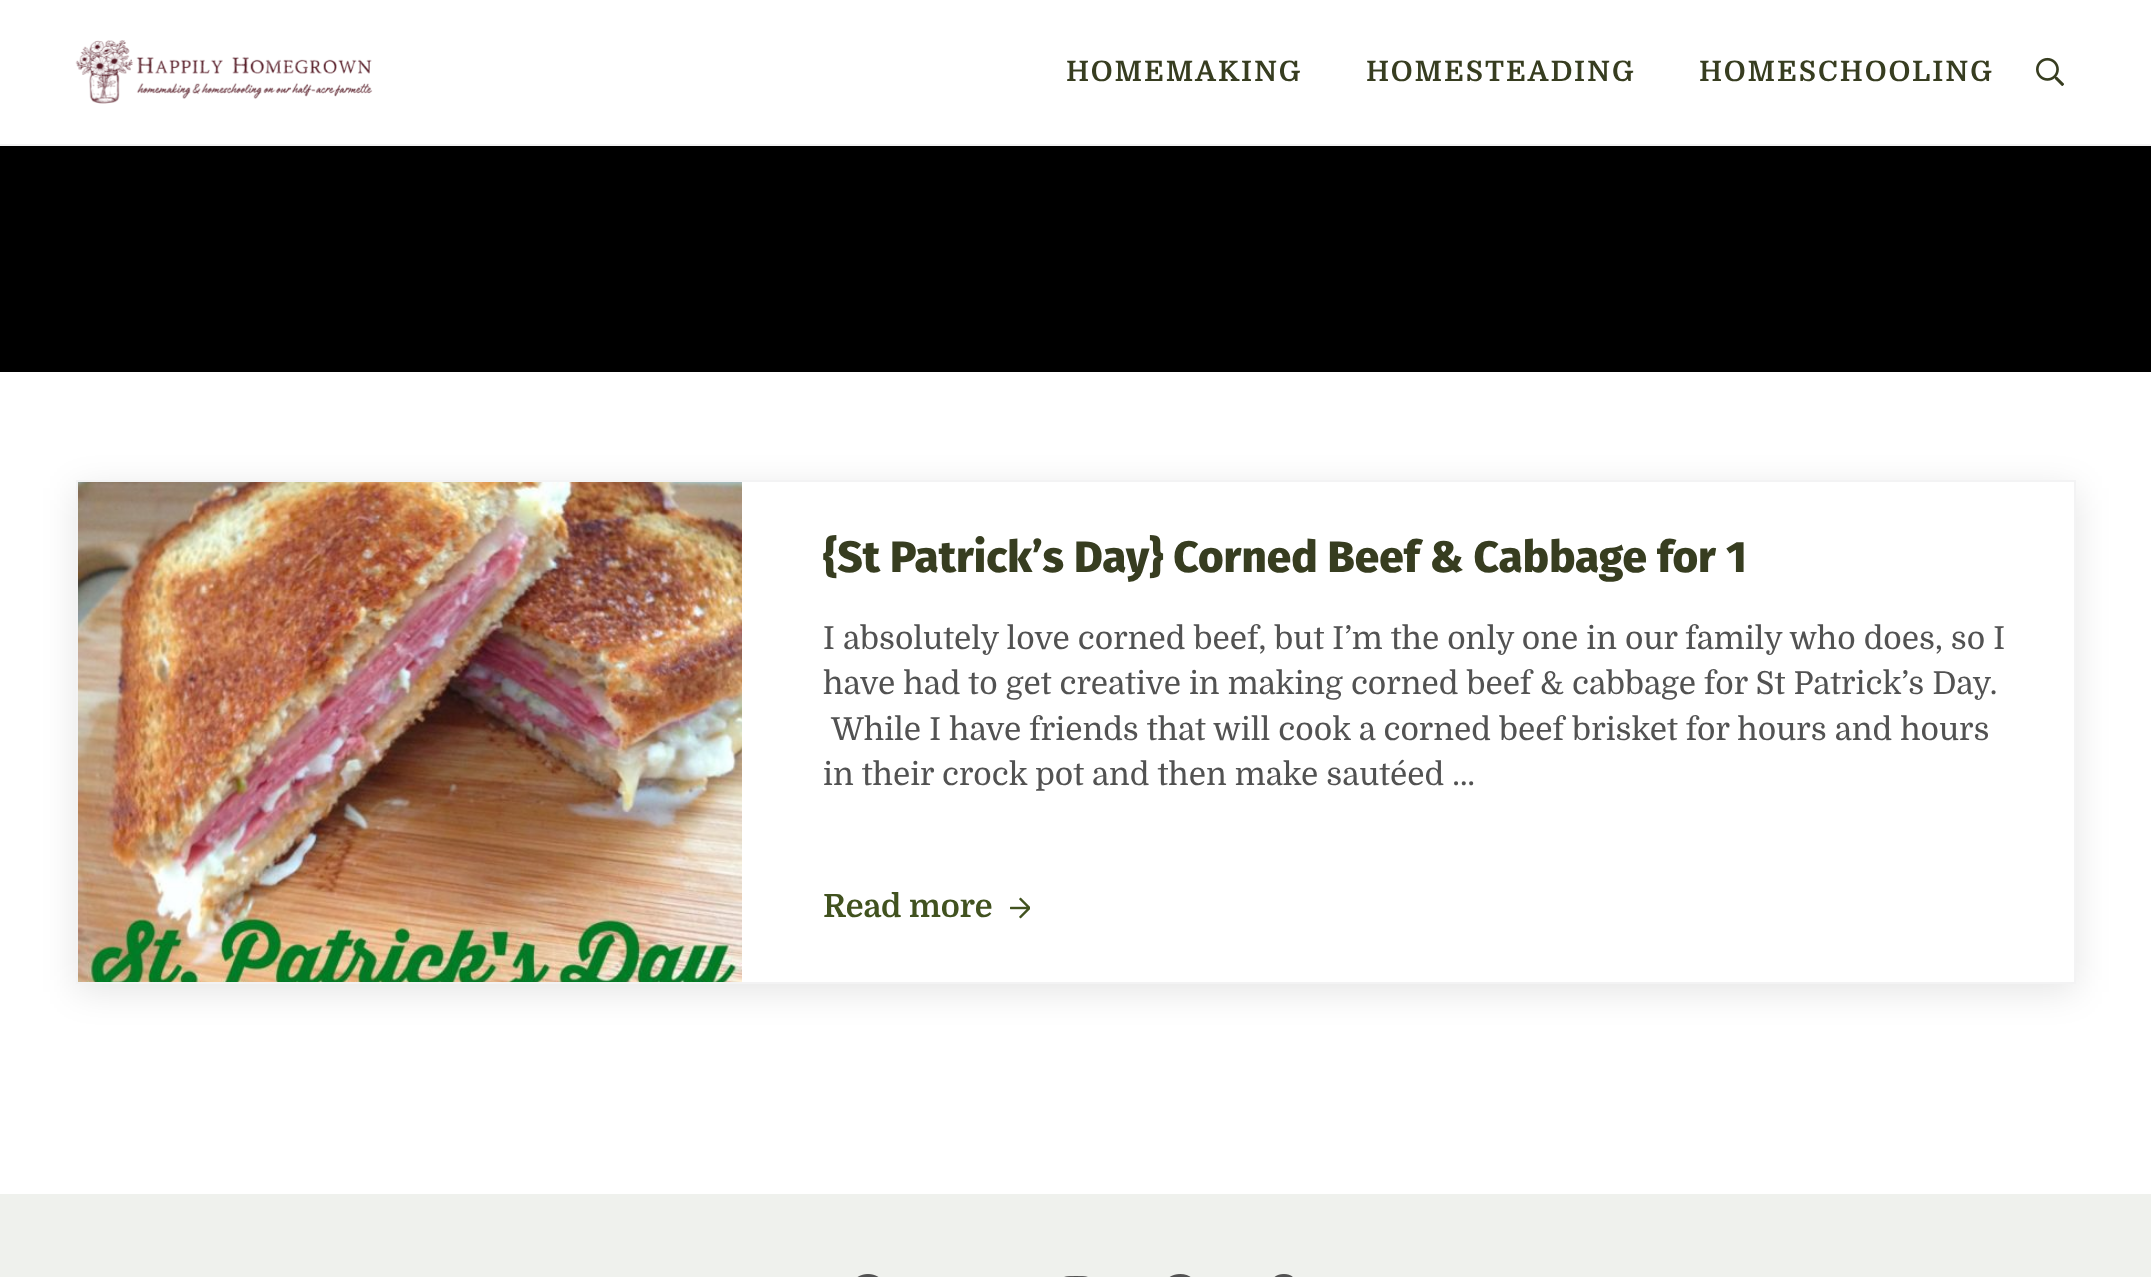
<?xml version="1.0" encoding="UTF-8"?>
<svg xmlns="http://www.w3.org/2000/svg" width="2151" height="1277">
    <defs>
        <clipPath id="clip1"><path d="M 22 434 H 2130 V 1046 H 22 Z M 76 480 H 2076 V 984 H 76 Z" clip-rule="evenodd"/></clipPath>
        <filter id="blur1" x="-50%" y="-200%" width="200%" height="500%"><feGaussianBlur stdDeviation="17.5"/></filter>
    </defs>
    <rect width="100%" height="100%" fill="#FFFFFF"/>
    <rect x="0" y="144" width="2151" height="2" fill="#F3F3F4"/>
    <image x="75" y="40" width="298" height="64" href="img_01.png"/>
    <text x="1066" y="81" font-family="Domine" font-size="28.25" font-weight="700" letter-spacing="2" fill="#373D20">HOMEMAKING</text>
    <text x="1366" y="81" font-family="Domine" font-size="28.25" font-weight="700" letter-spacing="2" fill="#373D20">HOMESTEADING</text>
    <text x="1699" y="81" font-family="Domine" font-size="28.25" font-weight="700" letter-spacing="2" fill="#373D20">HOMESCHOOLING</text>
    <image x="2036" y="57" width="28" height="29" href="img_02.png"/>
    <rect x="0" y="146" width="2151" height="226" fill="#000000"/>
    <g clip-path="url(#clip1)">
        <rect x="76" y="488" width="2000" height="504" fill="#0A141E" fill-opacity="0.1" filter="url(#blur1)"/>
    </g>
    <rect x="77" y="481" width="1998" height="502" fill="none" stroke="#F3F3F4" stroke-width="2"/>
    <image x="78" y="482" width="664" height="500" href="img_03.png"/>
    <text x="823" y="572" font-family="Fira Sans" font-size="44" font-weight="800" fill="#373D20">{St Patrick’s Day} Corned Beef &amp; Cabbage for 1</text>
    <text font-family="Domine" font-size="31.7" fill="#525252">
        <tspan x="823" y="649">I absolutely love corned beef, but I’m the only one in our family who does, so I</tspan>
        <tspan x="823" y="694">have had to get creative in making corned beef &amp; cabbage for St Patrick’s Day.</tspan>
    </text>
    <text x="831" y="740" font-family="Domine" font-size="31.7" fill="#525252">While I have friends that will cook a corned beef brisket for hours and hours</text>
    <text x="823" y="785" font-family="Domine" font-size="31.7" fill="#525252">in their crock pot and then make sautéed …</text>
    <text x="823" y="917" font-family="Domine" font-size="32" font-weight="700" fill="#41521F">Read more</text>
    <image x="1010" y="897" width="20" height="22" href="img_04.png"/>
    <rect x="0" y="1194" width="2151" height="83" fill="#EFF1ED"/>
    <image x="857" y="1274" width="22" height="3" href="img_05.png"/>
    <image x="1064" y="1276" width="24" height="1" href="img_06.png"/>
    <image x="1169" y="1274" width="22" height="3" href="img_07.png"/>
    <image x="1274" y="1274" width="19" height="3" href="img_08.png"/>
</svg>
